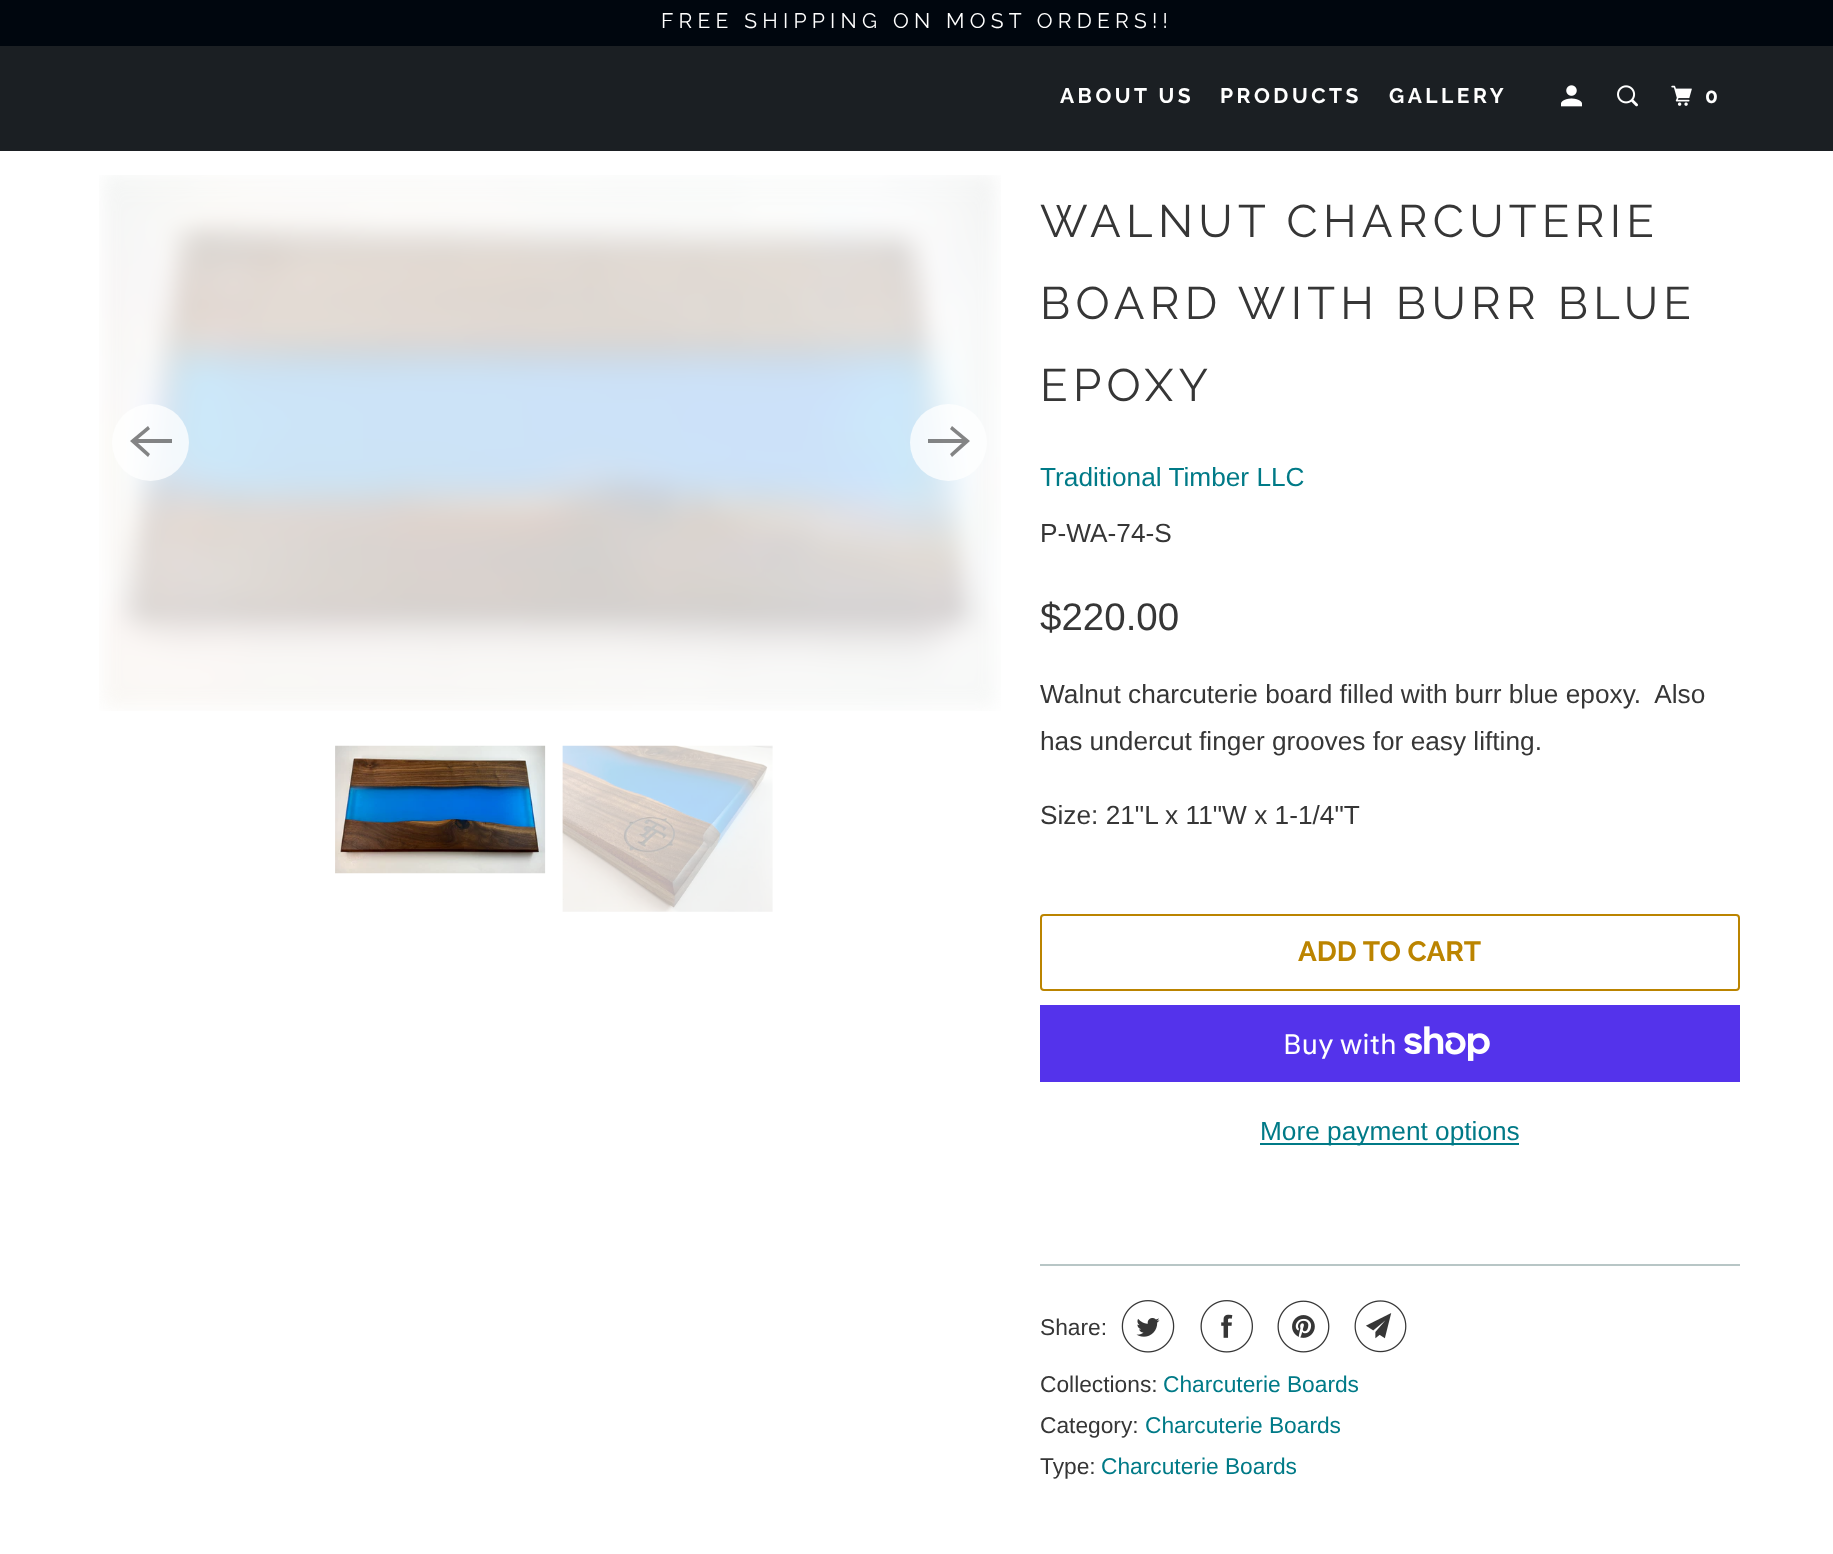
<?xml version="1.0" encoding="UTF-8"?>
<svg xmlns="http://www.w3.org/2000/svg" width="1833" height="1554">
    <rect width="100%" height="100%" fill="#FFFFFF"/>
    <rect x="0" y="0" width="1833" height="46" fill="#00060E"/>
    <text x="661" y="28" font-family="Raleway" font-size="21" letter-spacing="5.25" fill="#FFFFFF">FREE SHIPPING ON MOST ORDERS!!</text>
    <rect x="0" y="46" width="1833" height="105" fill="#1B1F23"/>
    <text x="1060" y="103" font-family="Raleway" font-size="21" font-weight="700" letter-spacing="3.5" fill="#FFFFFF">ABOUT US</text>
    <text x="1220" y="103" font-family="Raleway" font-size="21" font-weight="700" letter-spacing="3.5" fill="#FFFFFF">PRODUCTS</text>
    <text x="1389" y="103" font-family="Raleway" font-size="21" font-weight="700" letter-spacing="3.5" fill="#FFFFFF">GALLERY</text>
    <image x="1561" y="85" width="21" height="22" href="img_01.png"/>
    <image x="1617" y="85" width="21" height="22" href="img_02.png"/>
    <image x="1671" y="85" width="21" height="21" href="img_03.png"/>
    <text x="1705" y="103" font-family="Raleway" font-size="21" font-weight="700" letter-spacing="3.5" fill="#FFFFFF">0</text>
    <image x="99" y="175" width="902" height="536" href="img_04.png"/>
    <circle cx="150.5" cy="442.5" r="38.5" fill="#FFFFFF" fill-opacity="0.75"/>
    <path d="M 172 439 H 138 L 150 429 L 148 426 L 130 441 L 148 457 L 150 454 L 138 443 H 172 Z" fill="#333333" fill-opacity="0.6"/>
    <circle cx="948.5" cy="442.5" r="38.5" fill="#FFFFFF" fill-opacity="0.75"/>
    <path d="M 928 443 H 962 L 950 454 L 952 457 L 970 441 L 952 426 L 950 429 L 962 439 H 928 Z" fill="#333333" fill-opacity="0.6"/>
    <image x="335" y="745" width="211" height="129" href="img_05.png"/>
    <image x="562" y="745" width="211" height="167" href="img_06.png"/>
    <text font-family="Raleway" font-size="45.5" letter-spacing="5.25" fill="#363636">
        <tspan x="1040" y="237">WALNUT CHARCUTERIE</tspan>
        <tspan x="1040" y="319">BOARD WITH BURR BLUE</tspan>
        <tspan x="1040" y="401">EPOXY</tspan>
    </text>
    <text x="1040" y="486" font-family="Liberation Sans" font-size="26.25" fill="#007A87">Traditional Timber LLC</text>
    <text x="1040" y="542" font-family="Liberation Sans" font-size="26.25" fill="#363636">P-WA-74-S</text>
    <text x="1040" y="630" font-family="Liberation Sans" font-size="38.5" fill="#363636">$220.00</text>
    <text font-family="Liberation Sans" font-size="26.25" fill="#363636" xml:space="preserve"><tspan x="1040" y="703">Walnut charcuterie board filled with burr blue epoxy.  Also</tspan><tspan x="1040" y="750">has undercut finger grooves for easy lifting.</tspan></text>
    <text x="1040" y="824" font-family="Liberation Sans" font-size="26.25" fill="#363636">Size: 21"L x 11"W x 1-1/4"T</text>
    <rect x="1041" y="915" width="698" height="75" rx="3" fill="none" stroke="#BB8400" stroke-width="2"/>
    <text x="1298" y="961" font-family="Raleway" font-size="28" font-weight="700" fill="#BB8400">ADD TO CART</text>
    <rect x="1040" y="1005" width="700" height="77" fill="#5433EB"/>
    <text x="1283" y="1054" font-family="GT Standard" font-size="28" fill="#FFFFFF">Buy with</text>
    <image x="1404" y="1026" width="86" height="35" href="img_07.png"/>
    <rect x="1260" y="1143" width="259" height="2" fill="#007A87"/>
    <text x="1260" y="1140" font-family="Liberation Sans" font-size="26.25" fill="#007A87">More payment options</text>
    <rect x="1040" y="1264" width="700" height="2" fill="#B8C6C6"/>
    <text x="1040" y="1335" font-family="Liberation Sans" font-size="22.75" fill="#363636">Share:</text>
    <image x="1121" y="1300" width="54" height="53" href="img_08.png"/>
    <image x="1200" y="1300" width="53" height="53" href="img_09.png"/>
    <image x="1277" y="1300" width="53" height="53" href="img_10.png"/>
    <image x="1354" y="1300" width="53" height="53" href="img_11.png"/>
    <text x="1040" y="1392" font-family="Liberation Sans" font-size="22.75" fill="#363636">Collections:</text>
    <text x="1163" y="1392" font-family="Liberation Sans" font-size="22.75" fill="#007A87">Charcuterie Boards</text>
    <text x="1040" y="1433" font-family="Liberation Sans" font-size="22.75" fill="#363636">Category:</text>
    <text x="1145" y="1433" font-family="Liberation Sans" font-size="22.75" fill="#007A87">Charcuterie Boards</text>
    <text x="1040" y="1474" font-family="Liberation Sans" font-size="22.75" fill="#363636">Type:</text>
    <text x="1101" y="1474" font-family="Liberation Sans" font-size="22.75" fill="#007A87">Charcuterie Boards</text>
</svg>
